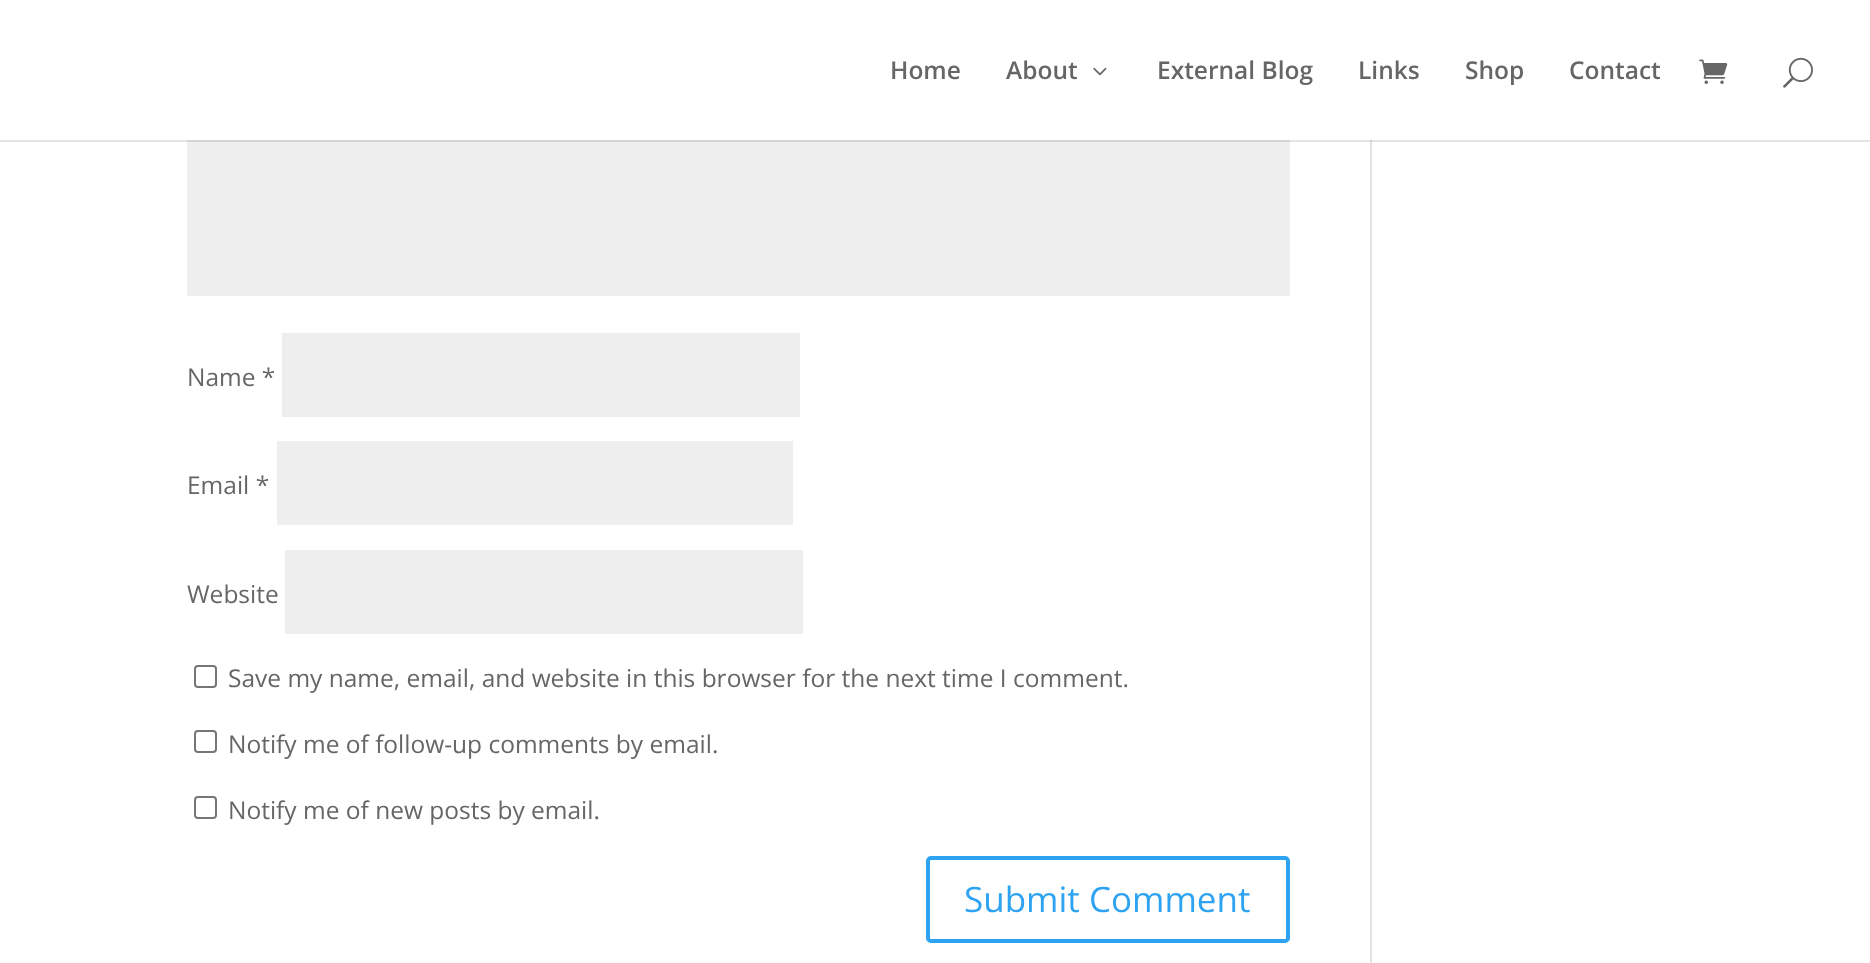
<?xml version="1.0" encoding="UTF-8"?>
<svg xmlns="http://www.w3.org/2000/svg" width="1870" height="963">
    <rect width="100%" height="100%" fill="#FFFFFF"/>
    <rect x="187" y="140" width="1103" height="156" fill="#EEEEEE"/>
    <rect x="1370" y="140" width="2" height="823" fill="#E2E2E2"/>
    <path d="M 0 140 V 142 H 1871 V 2 V 140 Z" fill="#000000" fill-opacity="0.1"/>
    <text x="890" y="79" font-family="Open Sans" font-size="24.5" font-weight="600" fill="#666666">Home</text>
    <text x="1006" y="79" font-family="Open Sans" font-size="24.5" font-weight="600" fill="#666666">About</text>
    <image x="1093" y="67" width="14" height="9" href="img_01.png"/>
    <text x="1157" y="79" font-family="Open Sans" font-size="24.5" font-weight="600" fill="#666666">External Blog</text>
    <text x="1358" y="79" font-family="Open Sans" font-size="24.5" font-weight="600" fill="#666666">Links</text>
    <text x="1465" y="79" font-family="Open Sans" font-size="24.5" font-weight="600" fill="#666666">Shop</text>
    <text x="1569" y="79" font-family="Open Sans" font-size="24.5" font-weight="600" fill="#666666">Contact</text>
    <image x="1699" y="59" width="29" height="25" href="img_02.png"/>
    <image x="1783" y="57" width="30" height="31" href="img_03.png"/>
    <text x="187" y="386" font-family="Open Sans" font-size="24.5" fill="#666666">Name *</text>
    <rect x="282" y="333" width="518" height="84" fill="#EEEEEE"/>
    <text x="187" y="494" font-family="Open Sans" font-size="24.5" fill="#666666">Email *</text>
    <rect x="277" y="441" width="516" height="84" fill="#EEEEEE"/>
    <text x="187" y="603" font-family="Open Sans" font-size="24.5" fill="#666666">Website</text>
    <rect x="285" y="550" width="518" height="84" fill="#EEEEEE"/>
    <rect x="195" y="666" width="21" height="21" rx="3" fill="none" stroke="#767676" stroke-width="2"/>
    <text x="228" y="687" font-family="Open Sans" font-size="24.5" fill="#666666">Save my name, email, and website in this browser for the next time I comment.</text>
    <rect x="195" y="731" width="21" height="21" rx="3" fill="none" stroke="#767676" stroke-width="2"/>
    <text x="228" y="753" font-family="Open Sans" font-size="24.5" fill="#666666">Notify me of follow-up comments by email.</text>
    <rect x="195" y="797" width="21" height="21" rx="3" fill="none" stroke="#767676" stroke-width="2"/>
    <text x="228" y="819" font-family="Open Sans" font-size="24.5" fill="#666666">Notify me of new posts by email.</text>
    <rect x="928" y="858" width="360" height="83" rx="3" fill="none" stroke="#2EA3F2" stroke-width="4"/>
    <text x="964" y="912" font-family="Open Sans" font-size="35" fill="#2EA3F2">Submit Comment</text>
</svg>
